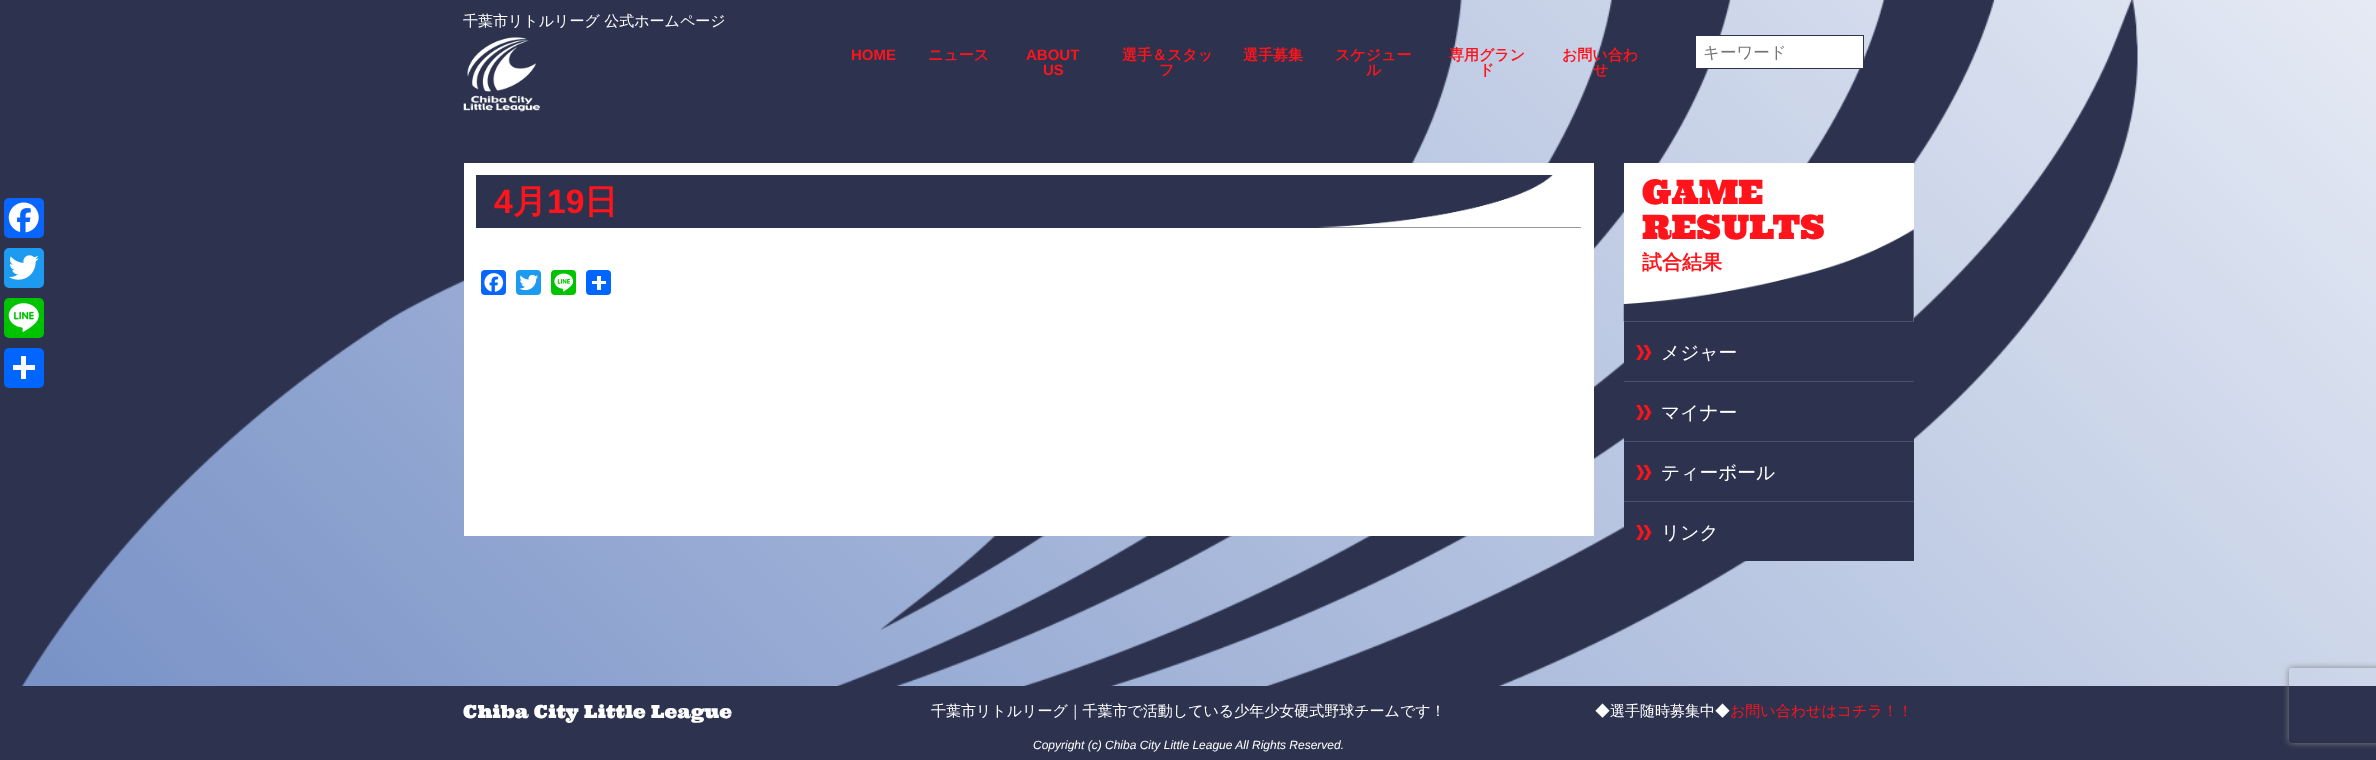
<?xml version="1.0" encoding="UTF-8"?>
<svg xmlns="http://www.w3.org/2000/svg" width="2376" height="760">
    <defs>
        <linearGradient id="g1" gradientUnits="userSpaceOnUse" x1="1974" y1="-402" x2="403" y2="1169"><stop offset="0" stop-color="#E5EAF4"/><stop offset="1" stop-color="#758FC5"/></linearGradient>
        <clipPath id="clip1"><path d="M 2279 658 H 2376 V 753 H 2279 Z M 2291.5 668 H 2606.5 C 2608 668 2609 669 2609 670.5 V 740.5 C 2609 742 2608 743 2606.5 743 H 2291.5 C 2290 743 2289 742 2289 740.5 V 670.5 C 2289 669 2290 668 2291.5 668 Z" clip-rule="evenodd"/></clipPath>
        <filter id="blur1" x="-50%" y="-200%" width="200%" height="500%"><feGaussianBlur stdDeviation="3"/></filter>
    </defs>
    <rect width="100%" height="100%" fill="#FFFFFF"/>
    <rect x="21" y="0" width="2355" height="686" fill="url(#g1)"/>
    <image x="0" y="0" width="2138" height="686" href="img_01.png"/>
    <image x="463" y="37" width="77" height="75" href="img_02.png"/>
    <text x="463" y="26" font-family="WenQuanYi Zen Hei" font-size="15" font-weight="500" fill="#FFFFFF">千葉市リトルリーグ 公式ホームページ</text>
    <text x="851" y="60" font-family="Liberation Sans" font-size="15" font-weight="700" fill="#FF141B">HOME</text>
    <text x="928" y="60" font-family="WenQuanYi Zen Hei" font-size="15" font-weight="700" fill="#FF141B">ニュース</text>
    <text x="1026" y="60" font-family="Liberation Sans" font-size="15" font-weight="700" fill="#FF141B">ABOUT</text>
    <text x="1043" y="75" font-family="Liberation Sans" font-size="15" font-weight="700" fill="#FF141B">US</text>
    <text x="1122" y="60" font-family="WenQuanYi Zen Hei" font-size="15" font-weight="700" fill="#FF141B">選手＆スタッ</text>
    <text x="1159" y="75" font-family="WenQuanYi Zen Hei" font-size="15" font-weight="700" fill="#FF141B">フ</text>
    <text x="1243" y="60" font-family="WenQuanYi Zen Hei" font-size="15" font-weight="700" fill="#FF141B">選手募集</text>
    <text x="1335" y="60" font-family="WenQuanYi Zen Hei" font-size="15" font-weight="700" fill="#FF141B">スケジュー</text>
    <text x="1366" y="75" font-family="WenQuanYi Zen Hei" font-size="15" font-weight="700" fill="#FF141B">ル</text>
    <text x="1449" y="60" font-family="WenQuanYi Zen Hei" font-size="15" font-weight="700" fill="#FF141B">専用グラン</text>
    <text x="1479" y="75" font-family="WenQuanYi Zen Hei" font-size="15" font-weight="700" fill="#FF141B">ド</text>
    <text x="1562" y="60" font-family="WenQuanYi Zen Hei" font-size="15" font-weight="700" fill="#FF141B">お問い合わ</text>
    <text x="1593" y="75" font-family="WenQuanYi Zen Hei" font-size="15" font-weight="700" fill="#FF141B">せ</text>
    <rect x="1695.5" y="35.5" width="168" height="33" fill="#FFFFFF" stroke="#2D334F"/>
    <text x="1703" y="58" font-family="WenQuanYi Zen Hei" font-size="16.5" font-weight="500" fill="#757575">キーワード</text>
    <rect x="4" y="198" width="40" height="40" rx="5" fill="#0866FF"/>
    <image x="8" y="202" width="31" height="31" href="img_03.png"/>
    <rect x="4" y="248" width="40" height="40" rx="5" fill="#1D9BF0"/>
    <image x="9" y="255" width="30" height="25" href="img_04.png"/>
    <rect x="4" y="298" width="40" height="40" rx="5" fill="#00C300"/>
    <image x="8" y="303" width="31" height="29" href="img_05.png"/>
    <rect x="4" y="348" width="40" height="40" rx="5" fill="#0166FF"/>
    <rect x="21" y="356" width="5" height="23" fill="#FFFFFF"/>
    <rect x="13" y="365" width="22" height="5" fill="#FFFFFF"/>
    <rect x="464" y="163" width="1130" height="373" fill="#FFFFFF"/>
    <rect x="476" y="175" width="1105" height="53" fill="#2D334F"/>
    <image x="1318" y="175" width="263" height="53" href="img_06.png"/>
    <text x="494" y="213" font-family="Liberation Sans" font-size="33.75" font-weight="700" fill="#FF141B">4</text>
    <text x="513" y="213" font-family="WenQuanYi Zen Hei" font-size="33.75" font-weight="700" fill="#FF141B">月</text>
    <text x="547" y="213" font-family="Liberation Sans" font-size="33.75" font-weight="700" fill="#FF141B">19</text>
    <text x="584" y="213" font-family="WenQuanYi Zen Hei" font-size="33.75" font-weight="700" fill="#FF141B">日</text>
    <rect x="481" y="270" width="25" height="25" rx="4" fill="#0866FF"/>
    <image x="484" y="273" width="20" height="19" href="img_07.png"/>
    <rect x="516" y="270" width="25" height="25" rx="4" fill="#1D9BF0"/>
    <image x="519" y="274" width="19" height="17" href="img_08.png"/>
    <rect x="551" y="270" width="25" height="25" rx="4" fill="#00C300"/>
    <image x="554" y="273" width="20" height="19" href="img_09.png"/>
    <rect x="586" y="270" width="25" height="25" rx="4" fill="#0166FF"/>
    <rect x="597" y="276" width="4" height="14" fill="#FFFFFF"/>
    <rect x="592" y="281" width="14" height="3" fill="#FFFFFF"/>
    <rect x="1624" y="163" width="290" height="158" fill="#FFFFFF"/>
    <image x="1623" y="228" width="291" height="94" href="img_10.png"/>
    <text font-family="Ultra" font-size="33.75" fill="#FF141B">
        <tspan x="1642" y="204">GAME</tspan>
        <tspan x="1642" y="239">RESULTS</tspan>
    </text>
    <text x="1642" y="269" font-family="WenQuanYi Zen Hei" font-size="20" font-weight="700" fill="#FF141B">試合結果</text>
    <rect x="1624" y="322" width="290" height="239" fill="#2D334F"/>
    <rect x="1624" y="321" width="290" height="1" fill="#494F6E"/>
    <image x="1636" y="345" width="16" height="15" href="img_11.png"/>
    <text x="1661" y="359" font-family="WenQuanYi Zen Hei" font-size="18.75" font-weight="500" fill="#FFFFFF">メジャー</text>
    <rect x="1624" y="381" width="290" height="1" fill="#494F6E"/>
    <image x="1636" y="405" width="16" height="15" href="img_11.png"/>
    <text x="1661" y="419" font-family="WenQuanYi Zen Hei" font-size="18.75" font-weight="500" fill="#FFFFFF">マイナー</text>
    <rect x="1624" y="441" width="290" height="1" fill="#494F6E"/>
    <image x="1636" y="465" width="16" height="15" href="img_11.png"/>
    <text x="1661" y="479" font-family="WenQuanYi Zen Hei" font-size="18.75" font-weight="500" fill="#FFFFFF">ティーボール</text>
    <rect x="1624" y="501" width="290" height="1" fill="#494F6E"/>
    <image x="1636" y="525" width="16" height="15" href="img_11.png"/>
    <text x="1661" y="539" font-family="WenQuanYi Zen Hei" font-size="18.75" font-weight="500" fill="#FFFFFF">リンク</text>
    <rect x="0" y="686" width="2376" height="74" fill="#2D334F"/>
    <text x="463" y="718" font-family="Ultra" font-size="18" fill="#FFFFFF">Chiba City Little League</text>
    <text x="931" y="716" font-family="WenQuanYi Zen Hei" font-size="15" font-weight="500" fill="#FFFFFF">千葉市リトルリーグ｜千葉市で活動している少年少女硬式野球チームです！</text>
    <text x="1595" y="716" font-family="WenQuanYi Zen Hei" font-size="15" font-weight="500" fill="#FFFFFF">◆選手随時募集中◆</text>
    <text x="1730" y="716" font-family="WenQuanYi Zen Hei" font-size="15" font-weight="500" fill="#FF141B">お問い合わせはコチラ！！</text>
    <text x="1033" y="749" font-family="Liberation Sans" font-size="12" font-style="italic" fill="#FFFFFF">Copyright (c) Chiba City Little League All Rights Reserved.</text>
    <g clip-path="url(#clip1)">
        <rect x="2289" y="668" width="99" height="75" rx="2.5" fill="#808080" filter="url(#blur1)"/>
    </g>
</svg>
